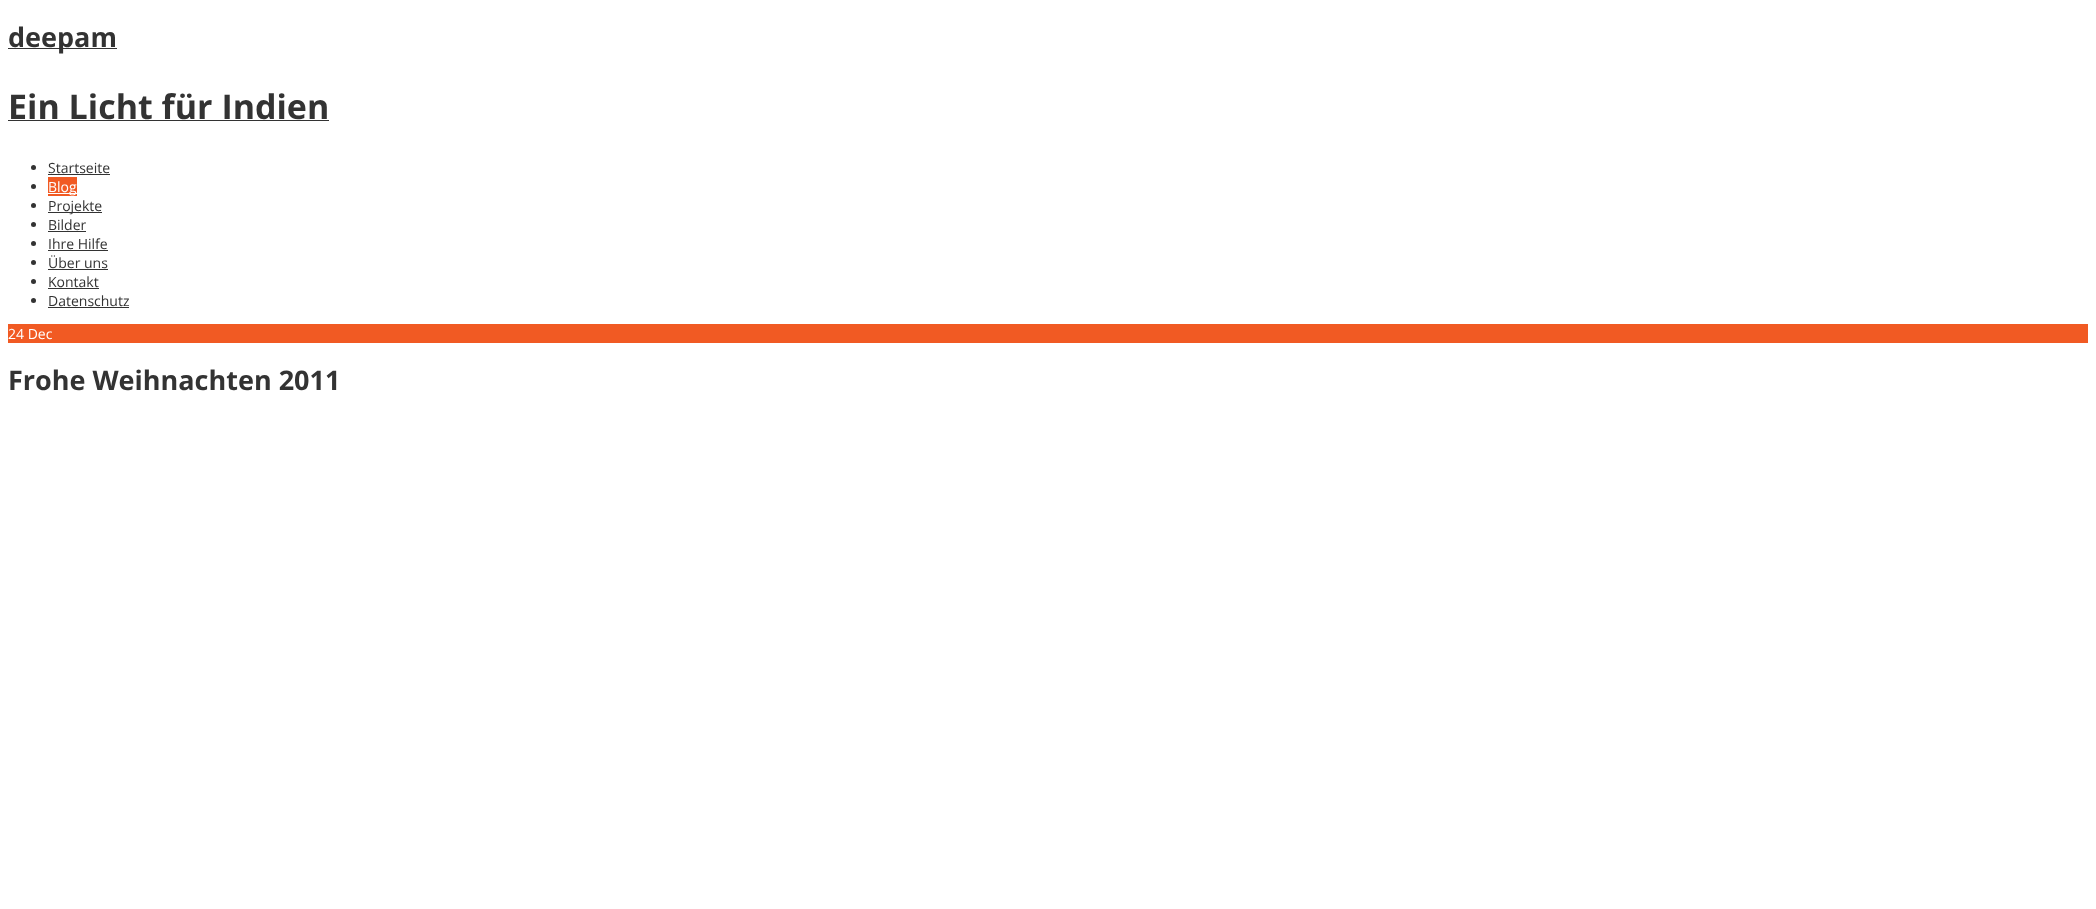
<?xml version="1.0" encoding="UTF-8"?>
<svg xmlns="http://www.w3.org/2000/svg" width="2096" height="909">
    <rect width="100%" height="100%" fill="#FFFFFF"/>
    <rect x="8" y="48" width="109" height="1" fill="#333333"/>
    <text x="8" y="47" font-family="Open Sans" font-size="27" font-weight="700" fill="#333333">deepam</text>
    <text x="8" y="119" font-family="Open Sans" font-size="34" font-weight="700" fill="#333333">Ein Licht für Indien</text>
    <rect x="8" y="120" width="321" height="1" fill="#333333"/>
    <circle cx="33.5" cy="167.5" r="2.5" fill="#333333"/>
    <text x="48" y="173" font-family="Open Sans" font-size="14" fill="#333333">Startseite</text>
    <rect x="48" y="174" width="62" height="1" fill="#333333"/>
    <circle cx="33.5" cy="186.5" r="2.5" fill="#333333"/>
    <rect x="48" y="177" width="29" height="19" fill="#F15A23"/>
    <rect x="48" y="193" width="29" height="1" fill="#FFFFFF"/>
    <text x="48" y="192" font-family="Open Sans" font-size="14" fill="#FFFFFF">Blog</text>
    <circle cx="33.5" cy="205.5" r="2.5" fill="#333333"/>
    <rect x="48" y="212" width="54" height="1" fill="#333333"/>
    <text x="48" y="211" font-family="Open Sans" font-size="14" fill="#333333">Projekte</text>
    <circle cx="33.5" cy="224.5" r="2.5" fill="#333333"/>
    <text x="48" y="230" font-family="Open Sans" font-size="14" fill="#333333">Bilder</text>
    <rect x="48" y="231" width="38" height="1" fill="#333333"/>
    <circle cx="33.5" cy="243.5" r="2.5" fill="#333333"/>
    <text x="48" y="249" font-family="Open Sans" font-size="14" fill="#333333">Ihre Hilfe</text>
    <rect x="48" y="250" width="60" height="1" fill="#333333"/>
    <circle cx="33.5" cy="262.5" r="2.5" fill="#333333"/>
    <text x="48" y="268" font-family="Open Sans" font-size="14" fill="#333333">Über uns</text>
    <rect x="48" y="269" width="60" height="1" fill="#333333"/>
    <circle cx="33.5" cy="281.5" r="2.5" fill="#333333"/>
    <text x="48" y="287" font-family="Open Sans" font-size="14" fill="#333333">Kontakt</text>
    <rect x="48" y="288" width="51" height="1" fill="#333333"/>
    <circle cx="33.5" cy="300.5" r="2.5" fill="#333333"/>
    <text x="48" y="306" font-family="Open Sans" font-size="14" fill="#333333">Datenschutz</text>
    <rect x="48" y="307" width="81" height="1" fill="#333333"/>
    <rect x="8" y="324" width="2080" height="19" fill="#F15A23"/>
    <text x="8" y="339" font-family="Open Sans" font-size="14" fill="#FFFFFF">24 Dec</text>
    <text x="8" y="390" font-family="Open Sans" font-size="27" font-weight="700" fill="#333333">Frohe Weihnachten 2011</text>
</svg>
